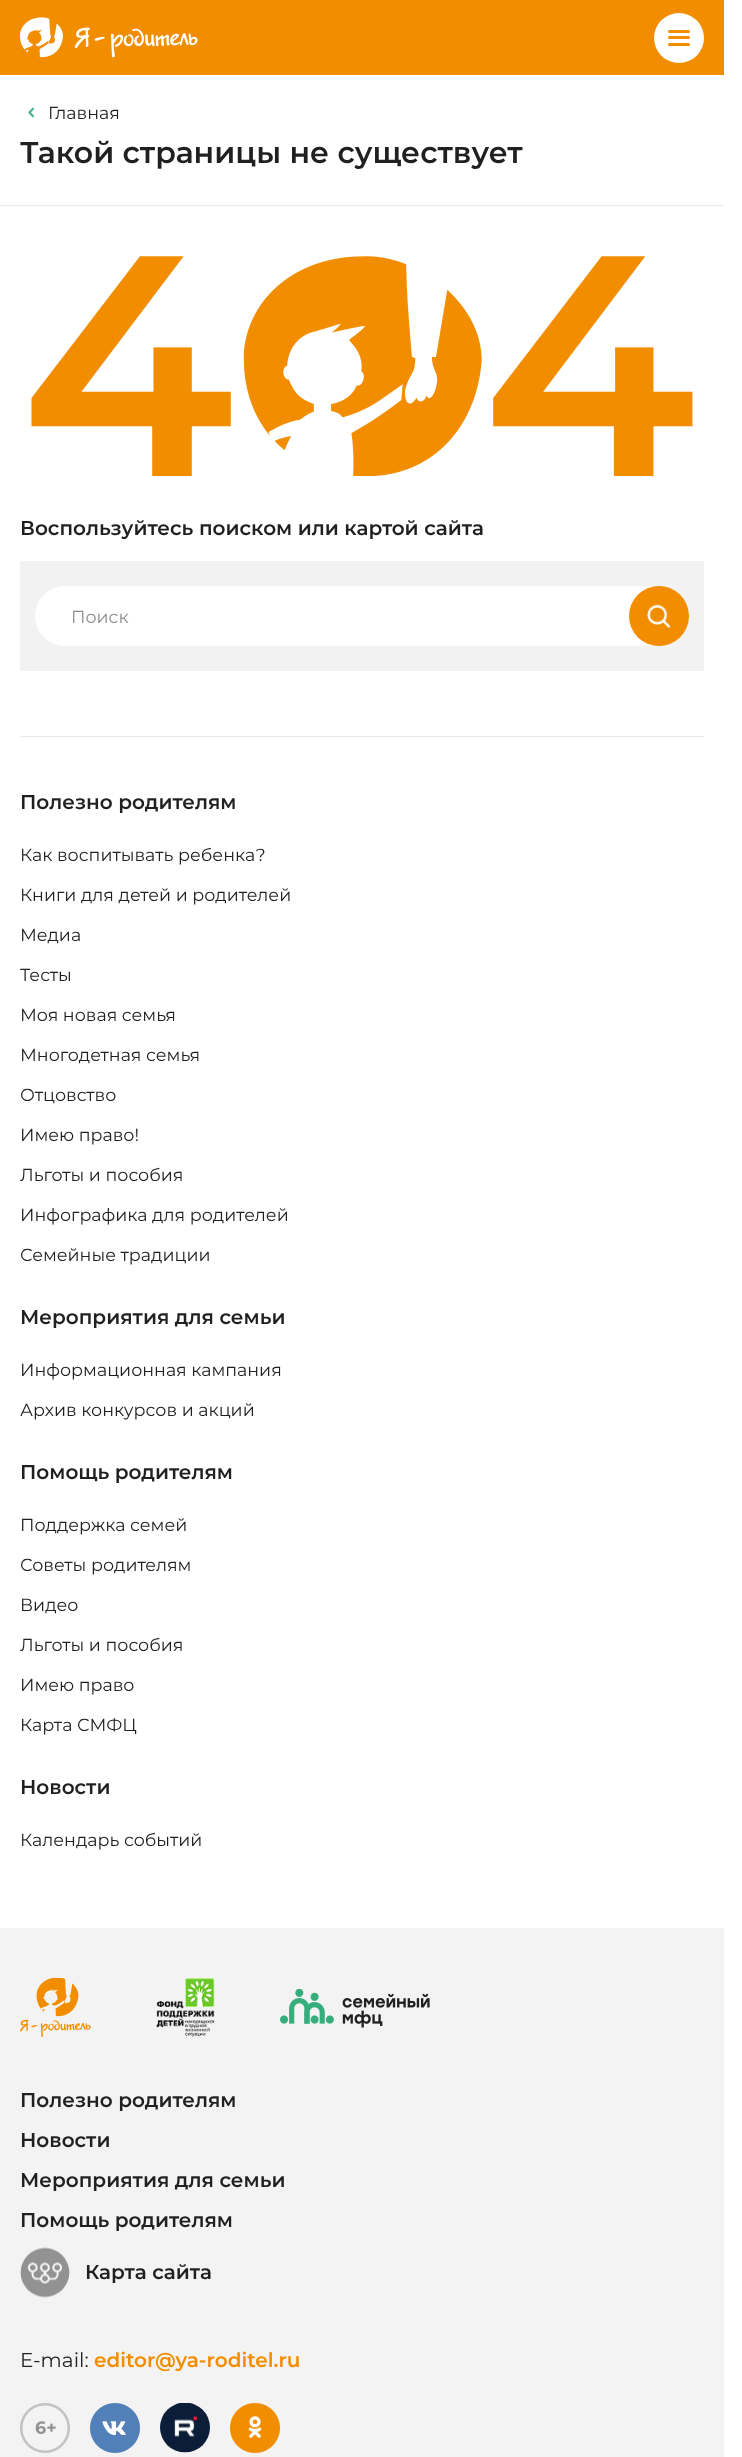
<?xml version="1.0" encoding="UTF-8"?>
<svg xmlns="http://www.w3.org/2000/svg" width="742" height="2457">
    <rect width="100%" height="100%" fill="#FFFFFF"/>
    <rect x="0" y="0" width="724" height="75" fill="#F28D00"/>
    <image x="20" y="17" width="178" height="41" href="img_01.png"/>
    <circle cx="679" cy="38" r="25" fill="#FFFFFF"/>
    <rect x="668" y="30" width="22" height="3" rx="1.5" fill="#F28D00"/>
    <rect x="668" y="36" width="22" height="3" rx="1.5" fill="#F28D00"/>
    <rect x="668" y="43" width="22" height="3" rx="1.5" fill="#F28D00"/>
    <image x="28" y="107" width="6" height="11" href="img_02.png"/>
    <text x="48" y="119" font-family="Montserrat" font-size="17.5" fill="#211F1F">Главная</text>
    <text x="20" y="163" font-family="Montserrat" font-size="30" font-weight="600" fill="#211F1F">Такой страницы не существует</text>
    <rect x="0" y="205" width="724" height="1" fill="#E7E8E9"/>
    <image x="31" y="256" width="662" height="220" href="img_03.png"/>
    <text x="20" y="535" font-family="Montserrat" font-size="20" font-weight="600" fill="#211F1F">Воспользуйтесь поиском или картой сайта</text>
    <rect x="20" y="561" width="684" height="110" fill="#F2F2F2"/>
    <rect x="35.5" y="586.5" width="653" height="59" rx="29.5" fill="#FFFFFF" stroke="#FFFFFF"/>
    <text x="71" y="623" font-family="Montserrat" font-size="17.5" fill="#908F8F">Поиск</text>
    <circle cx="659" cy="616" r="30" fill="#F28D00"/>
    <image x="647" y="604" width="24" height="25" href="img_04.png"/>
    <rect x="20" y="736" width="684" height="1" fill="#E7E8E9"/>
    <text x="20" y="809" font-family="Montserrat" font-size="20" font-weight="600" fill="#211F1F">Полезно родителям</text>
    <text x="20" y="861" font-family="Montserrat" font-size="17.5" fill="#211F1F">Как воспитывать ребенка?</text>
    <text x="20" y="901" font-family="Montserrat" font-size="17.5" fill="#211F1F">Книги для детей и родителей</text>
    <text x="20" y="941" font-family="Montserrat" font-size="17.5" fill="#211F1F">Медиа</text>
    <text x="20" y="981" font-family="Montserrat" font-size="17.5" fill="#211F1F">Тесты</text>
    <text x="20" y="1021" font-family="Montserrat" font-size="17.5" fill="#211F1F">Моя новая семья</text>
    <text x="20" y="1061" font-family="Montserrat" font-size="17.5" fill="#211F1F">Многодетная семья</text>
    <text x="20" y="1101" font-family="Montserrat" font-size="17.5" fill="#211F1F">Отцовство</text>
    <text x="20" y="1141" font-family="Montserrat" font-size="17.5" fill="#211F1F">Имею право!</text>
    <text x="20" y="1181" font-family="Montserrat" font-size="17.5" fill="#211F1F">Льготы и пособия</text>
    <text x="20" y="1221" font-family="Montserrat" font-size="17.5" fill="#211F1F">Инфографика для родителей</text>
    <text x="20" y="1261" font-family="Montserrat" font-size="17.5" fill="#211F1F">Семейные традиции</text>
    <text x="20" y="1324" font-family="Montserrat" font-size="20" font-weight="600" fill="#211F1F">Мероприятия для семьи</text>
    <text x="20" y="1376" font-family="Montserrat" font-size="17.5" fill="#211F1F">Информационная кампания</text>
    <text x="20" y="1416" font-family="Montserrat" font-size="17.5" fill="#211F1F">Архив конкурсов и акций</text>
    <text x="20" y="1479" font-family="Montserrat" font-size="20" font-weight="600" fill="#211F1F">Помощь родителям</text>
    <text x="20" y="1531" font-family="Montserrat" font-size="17.5" fill="#211F1F">Поддержка семей</text>
    <text x="20" y="1571" font-family="Montserrat" font-size="17.5" fill="#211F1F">Советы родителям</text>
    <text x="20" y="1611" font-family="Montserrat" font-size="17.5" fill="#211F1F">Видео</text>
    <text x="20" y="1651" font-family="Montserrat" font-size="17.5" fill="#211F1F">Льготы и пособия</text>
    <text x="20" y="1691" font-family="Montserrat" font-size="17.5" fill="#211F1F">Имею право</text>
    <text x="20" y="1731" font-family="Montserrat" font-size="17.5" fill="#211F1F">Карта СМФЦ</text>
    <text x="20" y="1794" font-family="Montserrat" font-size="20" font-weight="600" fill="#211F1F">Новости</text>
    <text x="20" y="1846" font-family="Montserrat" font-size="17.5" fill="#211F1F">Календарь событий</text>
    <rect x="0" y="1928" width="724" height="529" fill="#F3F3F3"/>
    <image x="20" y="1978" width="71" height="59" href="img_05.png"/>
    <image x="156" y="1978" width="59" height="59" href="img_06.png"/>
    <image x="280" y="1989" width="150" height="39" href="img_07.png"/>
    <text x="20" y="2107" font-family="Montserrat" font-size="20" font-weight="600" fill="#211F1F">Полезно родителям</text>
    <text x="20" y="2147" font-family="Montserrat" font-size="20" font-weight="600" fill="#211F1F">Новости</text>
    <text x="20" y="2187" font-family="Montserrat" font-size="20" font-weight="600" fill="#211F1F">Мероприятия для семьи</text>
    <text x="20" y="2227" font-family="Montserrat" font-size="20" font-weight="600" fill="#211F1F">Помощь родителям</text>
    <image x="20" y="2247" width="50" height="51" href="img_08.png"/>
    <text x="85" y="2279" font-family="Montserrat" font-size="20" font-weight="600" fill="#211F1F">Карта сайта</text>
    <text x="20" y="2367" font-family="Montserrat" font-size="20" fill="#211F1F">E-mail:</text>
    <text x="94" y="2367" font-family="Montserrat" font-size="20" font-weight="600" fill="#F28D00">editor@ya-roditel.ru</text>
    <image x="20" y="2403" width="50" height="50" href="img_09.png"/>
    <image x="90" y="2403" width="50" height="50" href="img_10.png"/>
    <image x="160" y="2403" width="50" height="50" href="img_11.png"/>
    <image x="230" y="2403" width="50" height="50" href="img_12.png"/>
</svg>
